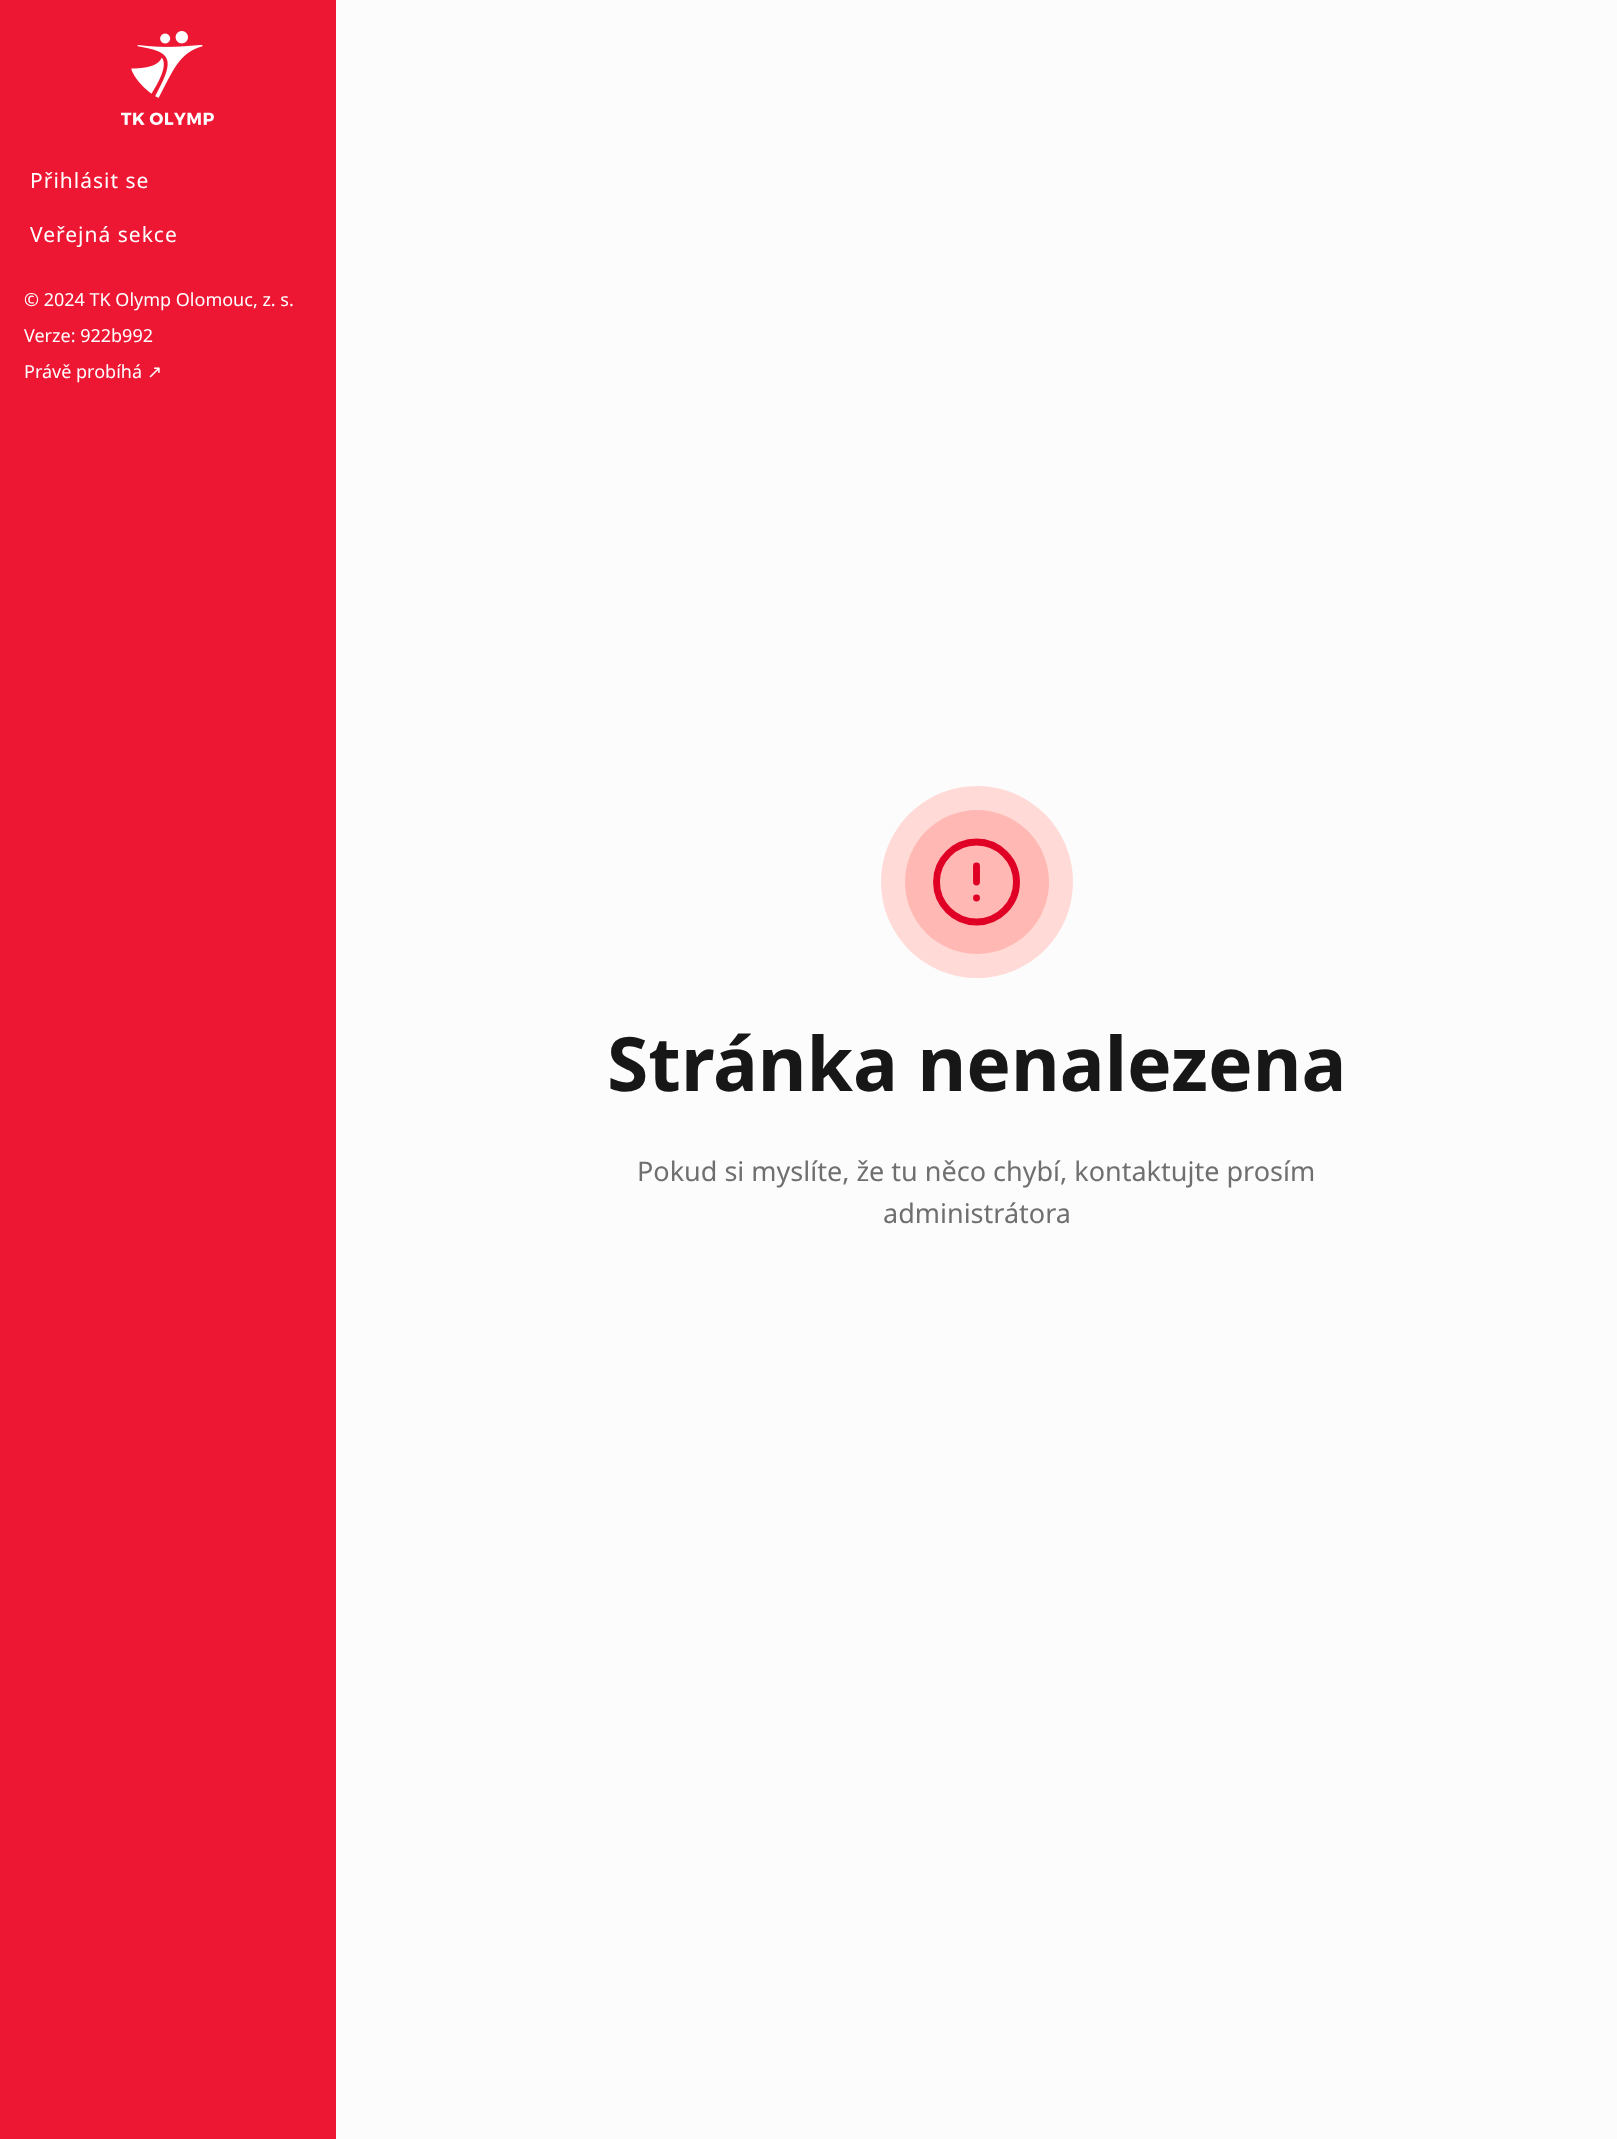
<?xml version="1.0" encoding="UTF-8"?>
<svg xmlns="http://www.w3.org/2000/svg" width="1617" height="2139">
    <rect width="100%" height="100%" fill="#FCFCFC"/>
    <rect x="0" y="0" width="336" height="2139" fill="#EE1733"/>
    <image x="121" y="31" width="93" height="94" href="img_01.png"/>
    <text x="30" y="188" font-family="Noto Sans" font-size="21" letter-spacing="1" fill="#FFFFFF">Přihlásit se</text>
    <text x="30" y="242" font-family="Noto Sans" font-size="21" letter-spacing="1" fill="#FFFFFF">Veřejná sekce</text>
    <text x="24" y="306" font-family="Noto Sans" font-size="18" fill="#FFFFFF">© 2024 TK Olymp Olomouc, z. s.</text>
    <text x="24" y="342" font-family="Noto Sans" font-size="18" fill="#FFFFFF">Verze: 922b992</text>
    <text x="24" y="378" font-family="Noto Sans" font-size="18" fill="#FFFFFF">Právě probíhá</text>
    <text x="147" y="378" font-family="DejaVu Sans" font-size="18" fill="#FFFFFF">↗︎</text>
    <circle cx="977" cy="882" r="96" fill="#FFDAD6"/>
    <circle cx="977" cy="882" r="72" fill="#FFB8B3"/>
    <path d="M 976.5 866 V 882 M 976.5 898 H 976.5 M 1016.5 882 C 1016.5 904 998.5 922 976.5 922 C 954.5 922 936.5 904 936.5 882 C 936.5 860 954.5 842 976.5 842 C 998.5 842 1016.5 860 1016.5 882 Z" fill="none" stroke="#E00025" stroke-width="6.9" stroke-linecap="round" stroke-linejoin="round"/>
    <text x="607" y="1091" font-family="Noto Sans" font-size="75" font-weight="700" fill="#171717">Stránka nenalezena</text>
    <text x="637" y="1181" font-family="Noto Sans" font-size="27" fill="#6F6F6F">Pokud si myslíte, že tu něco chybí, kontaktujte prosím</text>
    <text x="883" y="1223" font-family="Noto Sans" font-size="27" fill="#6F6F6F">administrátora</text>
</svg>
